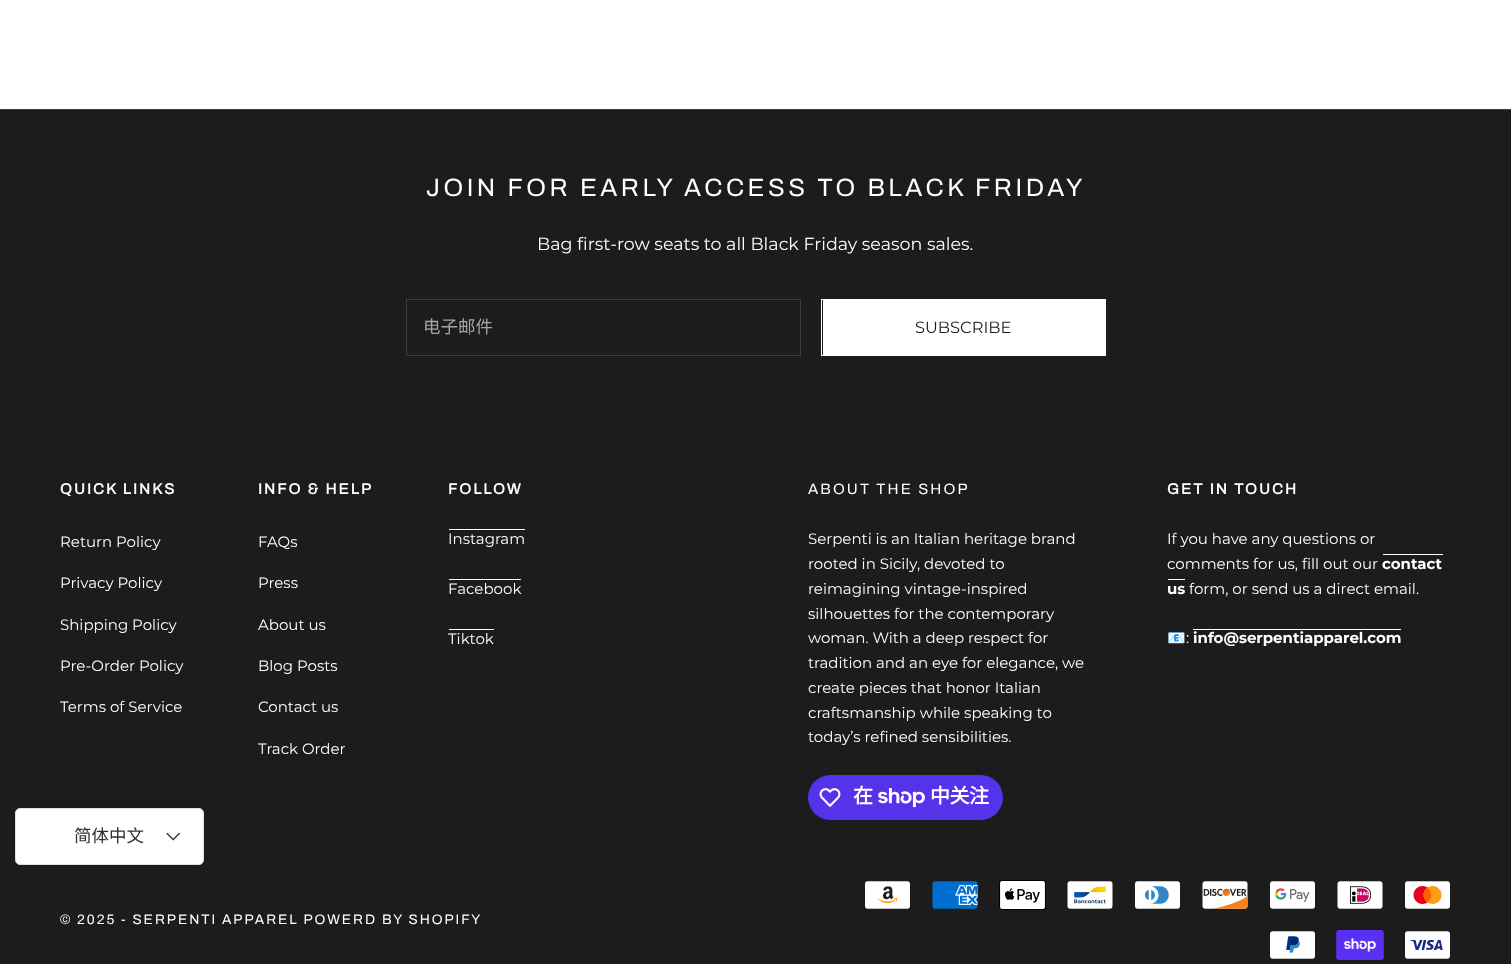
<?xml version="1.0" encoding="UTF-8"?>
<svg xmlns="http://www.w3.org/2000/svg" width="1511" height="964">
    <rect width="100%" height="100%" fill="#FFFFFF"/>
    <rect x="0" y="110" width="1511" height="854" fill="#1C1C1C"/>
    <rect x="0" y="109" width="1511" height="1" fill="#3E3E3E"/>
    <text x="426" y="196" font-family="Archivo" font-size="25" letter-spacing="3.5" fill="#FFFFFF">JOIN FOR EARLY ACCESS TO BLACK FRIDAY</text>
    <text x="537" y="250" font-family="Montserrat" font-size="17.5" font-weight="100" fill="#FFFFFF">Bag first-row seats to all Black Friday season sales.</text>
    <rect x="406.5" y="299.5" width="394" height="56" fill="none" stroke="#3E3E3E"/>
    <text x="423" y="333" font-family="Noto Sans CJK SC" font-size="17.5" fill="#A4A4A4">电子邮件</text>
    <rect x="823" y="300" width="282" height="55" fill="#FFFFFF"/>
    <rect x="821.5" y="299.5" width="284" height="56" fill="none" stroke="#FFFFFF"/>
    <text x="915" y="333" font-family="Montserrat" font-size="16.25" font-weight="100" fill="#1C1B1B">SUBSCRIBE</text>
    <text x="60" y="494" font-family="Archivo" font-size="15" font-weight="700" letter-spacing="2.1" fill="#FFFFFF">QUICK LINKS</text>
    <text x="60" y="547" font-family="Montserrat" font-size="15" font-weight="100" fill="#FFFFFF">Return Policy</text>
    <text x="60" y="588" font-family="Montserrat" font-size="15" font-weight="100" fill="#FFFFFF">Privacy Policy</text>
    <text x="60" y="630" font-family="Montserrat" font-size="15" font-weight="100" fill="#FFFFFF">Shipping Policy</text>
    <text x="60" y="671" font-family="Montserrat" font-size="15" font-weight="100" fill="#FFFFFF">Pre-Order Policy</text>
    <text x="60" y="712" font-family="Montserrat" font-size="15" font-weight="100" fill="#FFFFFF">Terms of Service</text>
    <text x="258" y="494" font-family="Archivo" font-size="15" font-weight="700" letter-spacing="2.1" fill="#FFFFFF">INFO &amp; HELP</text>
    <text x="258" y="547" font-family="Montserrat" font-size="15" font-weight="100" fill="#FFFFFF">FAQs</text>
    <text x="258" y="588" font-family="Montserrat" font-size="15" font-weight="100" fill="#FFFFFF">Press</text>
    <text x="258" y="630" font-family="Montserrat" font-size="15" font-weight="100" fill="#FFFFFF">About us</text>
    <text x="258" y="671" font-family="Montserrat" font-size="15" font-weight="100" fill="#FFFFFF">Blog Posts</text>
    <text x="258" y="712" font-family="Montserrat" font-size="15" font-weight="100" fill="#FFFFFF">Contact us</text>
    <text x="258" y="754" font-family="Montserrat" font-size="15" font-weight="100" fill="#FFFFFF">Track Order</text>
    <text x="448" y="494" font-family="Archivo" font-size="15" font-weight="700" letter-spacing="2.1" fill="#FFFFFF">FOLLOW</text>
    <text x="448" y="544" font-family="Montserrat" font-size="15" font-weight="100" fill="#FFFFFF">Instagram</text>
    <rect x="449" y="529" width="76" height="1" fill="#FFFFFF"/>
    <text x="448" y="594" font-family="Montserrat" font-size="15" font-weight="100" fill="#FFFFFF">Facebook</text>
    <rect x="449" y="579" width="72" height="1" fill="#FFFFFF"/>
    <text x="448" y="644" font-family="Montserrat" font-size="15" font-weight="100" fill="#FFFFFF">Tiktok</text>
    <rect x="449" y="629" width="45" height="1" fill="#FFFFFF"/>
    <text x="808" y="494" font-family="Archivo" font-size="15" letter-spacing="2.1" fill="#FFFFFF">ABOUT THE SHOP</text>
    <text font-family="Montserrat" font-size="15" font-weight="100" fill="#FFFFFF">
        <tspan x="808" y="544">Serpenti is an Italian heritage brand</tspan>
        <tspan x="808" y="569">rooted in Sicily, devoted to</tspan>
        <tspan x="808" y="594">reimagining vintage-inspired</tspan>
        <tspan x="808" y="619">silhouettes for the contemporary</tspan>
        <tspan x="808" y="643">woman. With a deep respect for</tspan>
        <tspan x="808" y="668">tradition and an eye for elegance, we</tspan>
        <tspan x="808" y="693">create pieces that honor Italian</tspan>
        <tspan x="808" y="718">craftsmanship while speaking to</tspan>
        <tspan x="808" y="742">today’s refined sensibilities.</tspan>
    </text>
    <rect x="808" y="775" width="195" height="45" rx="22.5" fill="#5433EB"/>
    <image x="819" y="788" width="22" height="19" href="img_01.png"/>
    <text x="853" y="803" font-family="Noto Sans CJK SC" font-size="20" font-weight="700" letter-spacing="-0.5" fill="#FFFFFF">在</text>
    <image x="878" y="788" width="47" height="20" href="img_02.png"/>
    <text x="930" y="803" font-family="Noto Sans CJK SC" font-size="20" font-weight="700" letter-spacing="-0.5" fill="#FFFFFF">中关注</text>
    <text x="1167" y="494" font-family="Archivo" font-size="15" font-weight="700" letter-spacing="2.1" fill="#FFFFFF">GET IN TOUCH</text>
    <text font-family="Montserrat" font-size="15" font-weight="100" fill="#FFFFFF">
        <tspan x="1167" y="544">If you have any questions or</tspan>
        <tspan x="1167" y="569">comments for us, fill out our</tspan>
    </text>
    <text x="1382" y="569" font-family="Montserrat" font-size="15" font-weight="700" fill="#FFFFFF">contact</text>
    <rect x="1383" y="554" width="60" height="1" fill="#FFFFFF"/>
    <text x="1167" y="594" font-family="Montserrat" font-size="15" font-weight="700" fill="#FFFFFF">us</text>
    <rect x="1168" y="579" width="17" height="1" fill="#FFFFFF"/>
    <text x="1189" y="594" font-family="Montserrat" font-size="15" font-weight="100" fill="#FFFFFF">form, or send us a direct email.</text>
    <text x="1167" y="643" font-family="Noto Color Emoji" font-size="15" fill="#FFFFFF">📧</text>
    <text x="1186" y="643" font-family="Montserrat" font-size="15" font-weight="100" fill="#FFFFFF">:</text>
    <text x="1193" y="643" font-family="Montserrat" font-size="15" font-weight="700" fill="#FFFFFF">info@serpentiapparel.com</text>
    <rect x="1193" y="629" width="208" height="1" fill="#FFFFFF"/>
    <text x="60" y="924" font-family="Archivo" font-size="13.75" letter-spacing="1.95" fill="#FFFFFF">© 2025 - SERPENTI APPAREL POWERD BY SHOPIFY</text>
    <image x="865" y="881" width="45" height="28" href="img_03.png"/>
    <image x="932" y="881" width="46" height="28" href="img_04.png"/>
    <image x="999" y="880" width="47" height="30" href="img_05.png"/>
    <image x="1067" y="881" width="46" height="28" href="img_06.png"/>
    <image x="1135" y="881" width="45" height="28" href="img_07.png"/>
    <image x="1202" y="881" width="46" height="28" href="img_08.png"/>
    <image x="1270" y="881" width="45" height="28" href="img_09.png"/>
    <image x="1337" y="881" width="46" height="28" href="img_10.png"/>
    <image x="1405" y="881" width="45" height="28" href="img_11.png"/>
    <image x="1270" y="931" width="45" height="28" href="img_12.png"/>
    <image x="1336" y="930" width="48" height="30" href="img_13.png"/>
    <image x="1405" y="931" width="45" height="28" href="img_14.png"/>
    <rect x="15.5" y="808.5" width="188" height="56" rx="4.5" fill="#FFFFFF" stroke="#E0E0E0"/>
    <text x="74" y="842" font-family="Noto Sans CJK SC" font-size="17.5" fill="#303030">简体中文</text>
    <image x="166" y="832" width="14" height="9" href="img_15.png"/>
</svg>
